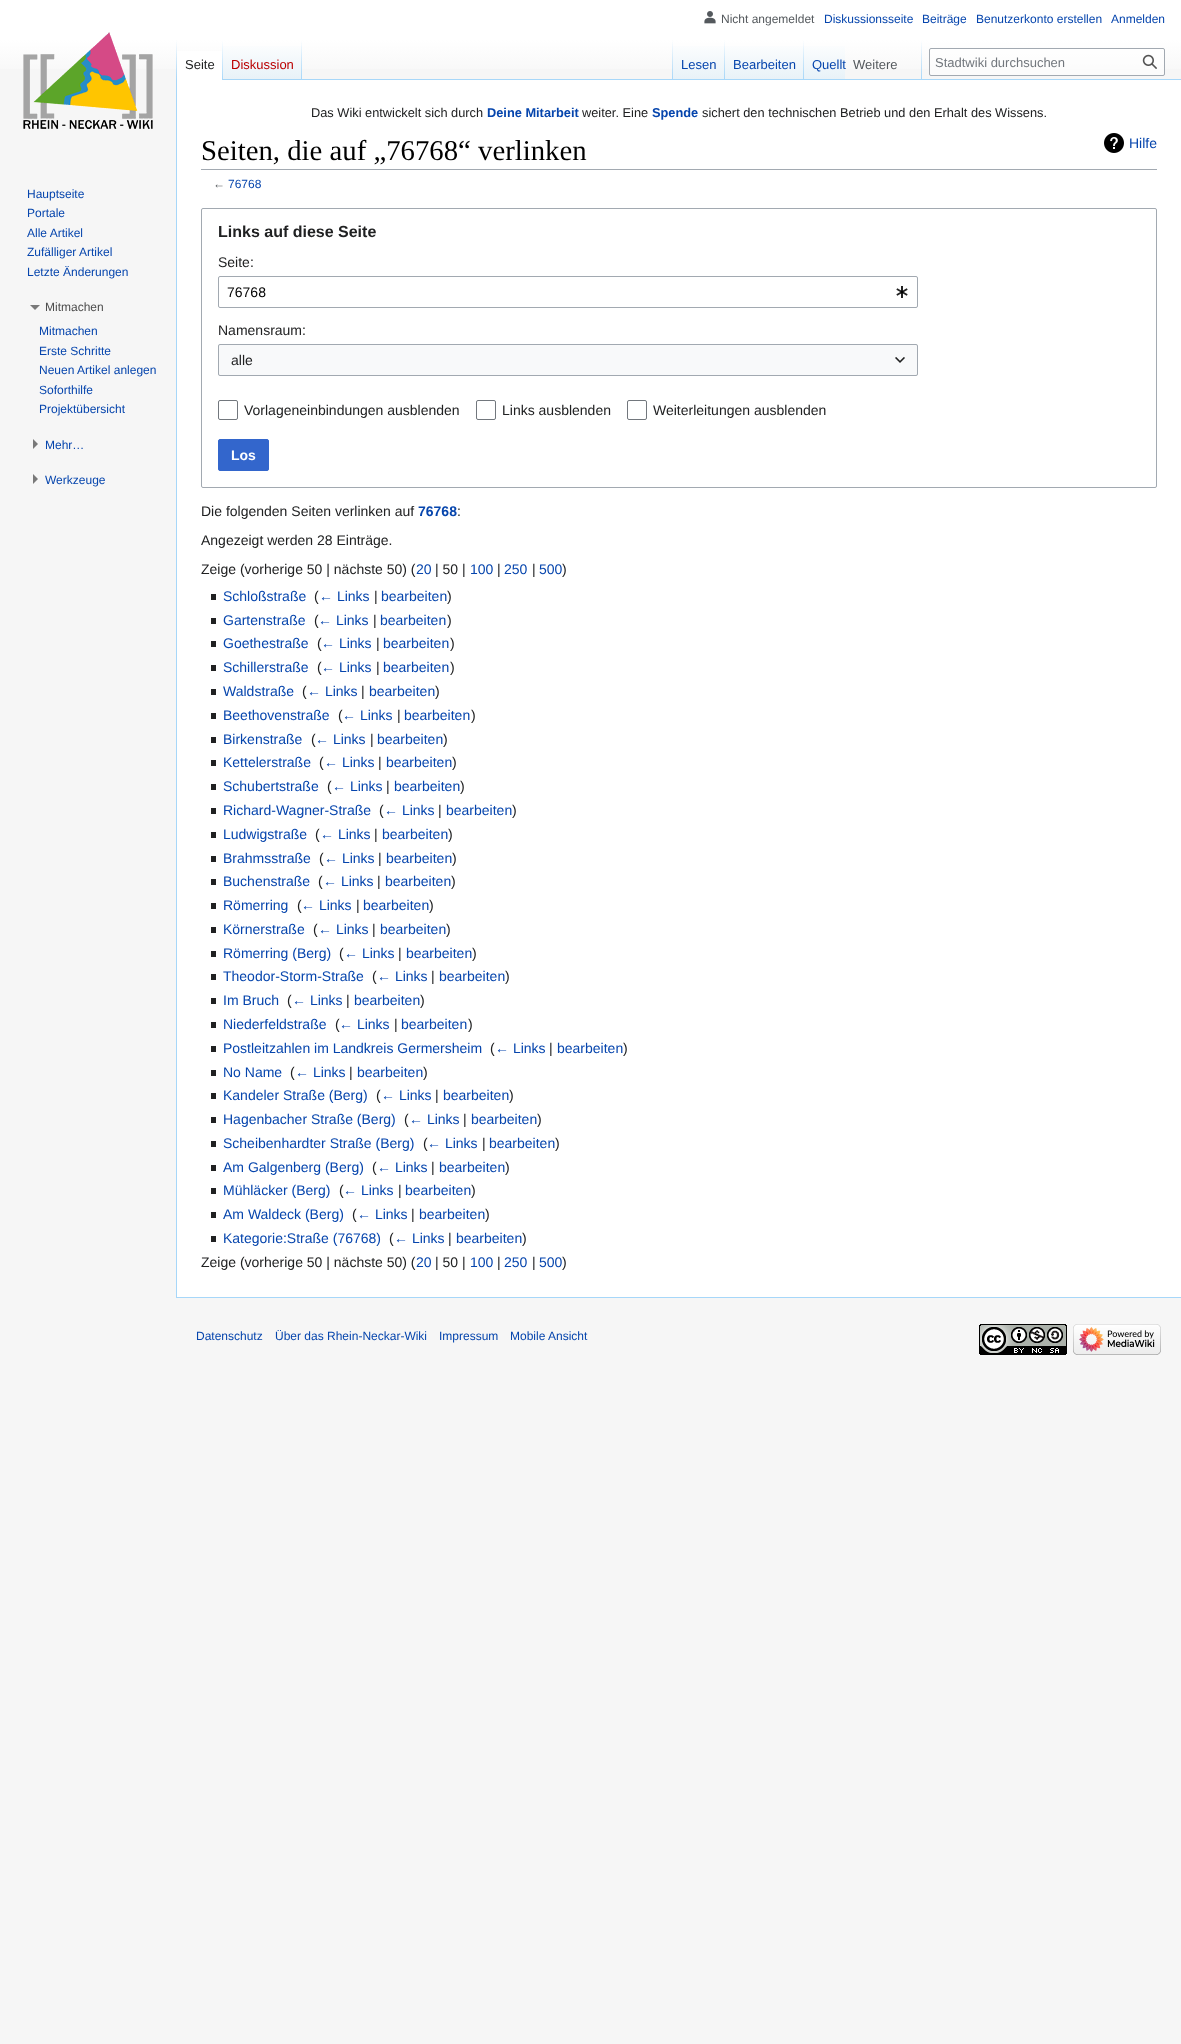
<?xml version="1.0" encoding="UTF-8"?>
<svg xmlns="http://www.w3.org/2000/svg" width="1181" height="2044">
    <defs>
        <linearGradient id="g1" gradientUnits="userSpaceOnUse" x1="591" y1="0" x2="591" y2="80"><stop offset="0.5" stop-color="#FFFFFF"/><stop offset="1" stop-color="#F6F6F6"/></linearGradient>
        <linearGradient id="g2" gradientUnits="userSpaceOnUse" x1="177" y1="40" x2="177" y2="80"><stop offset="0" stop-color="#A7D7F9" stop-opacity="0"/><stop offset="1" stop-color="#A7D7F9"/></linearGradient>
        <linearGradient id="g3" gradientUnits="userSpaceOnUse" x1="223" y1="40" x2="223" y2="80"><stop offset="0" stop-color="#FFFFFF"/><stop offset="1" stop-color="#A7D7F9"/></linearGradient>
        <linearGradient id="g4" gradientUnits="userSpaceOnUse" x1="263" y1="80" x2="263" y2="40"><stop offset="0" stop-color="#77C1F6"/><stop offset="0.03" stop-color="#E8F2F8"/><stop offset="1" stop-color="#FFFFFF"/></linearGradient>
        <linearGradient id="g5" gradientUnits="userSpaceOnUse" x1="302" y1="40" x2="302" y2="80"><stop offset="0" stop-color="#A7D7F9" stop-opacity="0"/><stop offset="1" stop-color="#A7D7F9"/></linearGradient>
        <linearGradient id="g6" gradientUnits="userSpaceOnUse" x1="673" y1="40" x2="673" y2="80"><stop offset="0" stop-color="#A7D7F9" stop-opacity="0"/><stop offset="1" stop-color="#A7D7F9"/></linearGradient>
        <linearGradient id="g7" gradientUnits="userSpaceOnUse" x1="699" y1="80" x2="699" y2="40"><stop offset="0" stop-color="#77C1F6"/><stop offset="0.03" stop-color="#E8F2F8"/><stop offset="1" stop-color="#FFFFFF"/></linearGradient>
        <linearGradient id="g8" gradientUnits="userSpaceOnUse" x1="725" y1="40" x2="725" y2="80"><stop offset="0" stop-color="#A7D7F9" stop-opacity="0"/><stop offset="1" stop-color="#A7D7F9"/></linearGradient>
        <linearGradient id="g9" gradientUnits="userSpaceOnUse" x1="765" y1="80" x2="765" y2="40"><stop offset="0" stop-color="#77C1F6"/><stop offset="0.03" stop-color="#E8F2F8"/><stop offset="1" stop-color="#FFFFFF"/></linearGradient>
        <linearGradient id="g10" gradientUnits="userSpaceOnUse" x1="804" y1="40" x2="804" y2="80"><stop offset="0" stop-color="#A7D7F9" stop-opacity="0"/><stop offset="1" stop-color="#A7D7F9"/></linearGradient>
        <linearGradient id="g11" gradientUnits="userSpaceOnUse" x1="825" y1="80" x2="825" y2="40"><stop offset="0" stop-color="#77C1F6"/><stop offset="0.03" stop-color="#E8F2F8"/><stop offset="1" stop-color="#FFFFFF"/></linearGradient>
        <linearGradient id="g12" gradientUnits="userSpaceOnUse" x1="922" y1="40" x2="922" y2="80"><stop offset="0" stop-color="#A7D7F9" stop-opacity="0"/><stop offset="1" stop-color="#A7D7F9"/></linearGradient>
    </defs>
    <rect width="100%" height="100%" fill="#F6F6F6"/>
    <rect x="0" y="0" width="1181" height="69" fill="url(#g1)"/>
    <image x="704" y="11" width="12" height="13" href="img_01.png"/>
    <text x="721" y="23" font-family="Liberation Sans" font-size="12" fill="#54595D">Nicht angemeldet</text>
    <text x="824" y="23" font-family="Liberation Sans" font-size="12" fill="#0645AD">Diskussionsseite</text>
    <text x="922" y="23" font-family="Liberation Sans" font-size="12" fill="#0645AD">Beiträge</text>
    <text x="976" y="23" font-family="Liberation Sans" font-size="12" fill="#0645AD">Benutzerkonto erstellen</text>
    <text x="1111" y="23" font-family="Liberation Sans" font-size="12" fill="#0645AD">Anmelden</text>
    <rect x="176" y="1297" width="1005" height="1" fill="#A7D7F9"/>
    <rect x="176" y="79" width="1" height="1219" fill="#A7D7F9"/>
    <rect x="176" y="40" width="1" height="40" fill="url(#g2)"/>
    <rect x="177" y="51" width="45" height="29" fill="#FFFFFF"/>
    <rect x="222" y="40" width="1" height="40" fill="url(#g3)"/>
    <text x="185" y="69" font-family="Liberation Sans" font-size="13" fill="#202122">Seite</text>
    <rect x="223" y="46" width="79" height="34" fill="url(#g4)"/>
    <rect x="301" y="40" width="1" height="40" fill="url(#g5)"/>
    <text x="231" y="69" font-family="Liberation Sans" font-size="13" fill="#BA0000">Diskussion</text>
    <rect x="302" y="79" width="879" height="1" fill="#A7D7F9"/>
    <rect x="672" y="40" width="1" height="40" fill="url(#g6)"/>
    <rect x="673" y="46" width="52" height="33" fill="url(#g7)"/>
    <rect x="724" y="40" width="1" height="40" fill="url(#g8)"/>
    <text x="681" y="69" font-family="Liberation Sans" font-size="13" fill="#0645AD">Lesen</text>
    <rect x="725" y="46" width="79" height="33" fill="url(#g9)"/>
    <rect x="803" y="40" width="1" height="40" fill="url(#g10)"/>
    <text x="733" y="69" font-family="Liberation Sans" font-size="13" fill="#0645AD">Bearbeiten</text>
    <rect x="804" y="46" width="41" height="33" fill="url(#g11)"/>
    <text x="812" y="69" font-family="Liberation Sans" font-size="13" fill="#0645AD">Quellt</text>
    <rect x="921" y="40" width="1" height="40" fill="url(#g12)"/>
    <text x="853" y="69" font-family="Liberation Sans" font-size="13" fill="#54595D">Weitere</text>
    <rect x="929.5" y="48.5" width="235" height="27" rx="1.5" fill="#FFFFFF" fill-opacity="0.5" stroke="#A2A9B1"/>
    <text x="935" y="67" font-family="Liberation Sans" font-size="13" fill="#72777D">Stadtwiki durchsuchen</text>
    <image x="1142" y="54" width="15" height="15" href="img_02.png"/>
    <image x="23" y="32" width="130" height="97" href="img_03.png"/>
    <text font-family="Liberation Sans" font-size="12" fill="#0645AD">
        <tspan x="27" y="198">Hauptseite</tspan>
        <tspan x="27" y="217">Portale</tspan>
        <tspan x="27" y="237">Alle Artikel</tspan>
        <tspan x="27" y="256">Zufälliger Artikel</tspan>
        <tspan x="27" y="276">Letzte Änderungen</tspan>
    </text>
    <path d="M 40 305 L 35 310 L 30 305 Z" fill="#797979"/>
    <text x="45" y="311" font-family="Liberation Sans" font-size="12" fill="#4D4D4D">Mitmachen</text>
    <text font-family="Liberation Sans" font-size="12" fill="#0645AD">
        <tspan x="39" y="335">Mitmachen</tspan>
        <tspan x="39" y="355">Erste Schritte</tspan>
        <tspan x="39" y="374">Neuen Artikel anlegen</tspan>
        <tspan x="39" y="394">Soforthilfe</tspan>
        <tspan x="39" y="413">Projektübersicht</tspan>
    </text>
    <path d="M 33 439 L 38 444 L 33 449 Z" fill="#797979"/>
    <text x="45" y="449" font-family="Liberation Sans" font-size="12" fill="#0645AD">Mehr…</text>
    <path d="M 33 474 L 38 479 L 33 484 Z" fill="#797979"/>
    <text x="45" y="484" font-family="Liberation Sans" font-size="12" fill="#0645AD">Werkzeuge</text>
    <rect x="177" y="80" width="1004" height="1217" fill="#FFFFFF"/>
    <text x="311" y="117" font-family="Liberation Sans" font-size="12.8" fill="#202122">Das Wiki entwickelt sich durch</text>
    <text x="487" y="117" font-family="Liberation Sans" font-size="12.8" font-weight="700" fill="#0645AD">Deine Mitarbeit</text>
    <text x="582" y="117" font-family="Liberation Sans" font-size="12.8" fill="#202122">weiter. Eine</text>
    <text x="652" y="117" font-family="Liberation Sans" font-size="12.8" font-weight="700" fill="#0645AD">Spende</text>
    <text x="702" y="117" font-family="Liberation Sans" font-size="12.8" fill="#202122">sichert den technischen Betrieb und den Erhalt des Wissens.</text>
    <rect x="201" y="169" width="956" height="1" fill="#A2A9B1"/>
    <text x="201" y="160" font-family="Liberation Serif" font-size="28.75" fill="#000000">Seiten, die auf „76768“ verlinken</text>
    <image x="1104" y="133" width="20" height="20" href="img_04.png"/>
    <text x="1129" y="148" font-family="Liberation Sans" font-size="14" fill="#0645AD">Hilfe</text>
    <text x="213" y="188" font-family="Liberation Sans" font-size="12" fill="#54595D">←</text>
    <text x="228" y="188" font-family="Liberation Sans" font-size="12" fill="#0645AD">76768</text>
    <rect x="201.5" y="208.5" width="955" height="279" rx="1.5" fill="none" stroke="#A2A9B1"/>
    <text x="218" y="237" font-family="Liberation Sans" font-size="16" font-weight="700" fill="#202122">Links auf diese Seite</text>
    <text x="218" y="267" font-family="Liberation Sans" font-size="14" fill="#202122">Seite:</text>
    <rect x="218.5" y="276.5" width="699" height="31" rx="1.5" fill="none" stroke="#A2A9B1"/>
    <text x="227" y="297" font-family="Liberation Sans" font-size="14" fill="#000000">76768</text>
    <image x="896" y="286" width="12" height="12" href="img_05.png"/>
    <text x="218" y="335" font-family="Liberation Sans" font-size="14" fill="#202122">Namensraum:</text>
    <rect x="218" y="344" width="700" height="32" fill="#F8F9FA"/>
    <rect x="218.5" y="344.5" width="699" height="31" rx="1.5" fill="none" stroke="#A2A9B1"/>
    <text x="231" y="365" font-family="Liberation Sans" font-size="14" fill="#202122">alle</text>
    <image x="895" y="357" width="10" height="6" href="img_06.png"/>
    <rect x="218.5" y="400.5" width="19" height="19" rx="1.5" fill="none" stroke="#72777D"/>
    <text x="244" y="415" font-family="Liberation Sans" font-size="14" fill="#202122">Vorlageneinbindungen ausblenden</text>
    <rect x="476.5" y="400.5" width="19" height="19" rx="1.5" fill="none" stroke="#72777D"/>
    <text x="502" y="415" font-family="Liberation Sans" font-size="14" fill="#202122">Links ausblenden</text>
    <rect x="627.5" y="400.5" width="19" height="19" rx="1.5" fill="none" stroke="#72777D"/>
    <text x="653" y="415" font-family="Liberation Sans" font-size="14" fill="#202122">Weiterleitungen ausblenden</text>
    <rect x="218.5" y="439.5" width="50" height="31" rx="1.5" fill="#3366CC" stroke="#3366CC"/>
    <text x="231" y="460" font-family="Liberation Sans" font-size="14" font-weight="700" fill="#FFFFFF">Los</text>
    <text x="201" y="516" font-family="Liberation Sans" font-size="14" fill="#202122">Die folgenden Seiten verlinken auf</text>
    <text x="418" y="516" font-family="Liberation Sans" font-size="14" font-weight="700" fill="#0645AD">76768</text>
    <text x="457" y="516" font-family="Liberation Sans" font-size="14" fill="#202122">:</text>
    <text x="201" y="545" font-family="Liberation Sans" font-size="14" fill="#202122">Angezeigt werden 28 Einträge.</text>
    <text x="201" y="574" font-family="Liberation Sans" font-size="14" fill="#202122">Zeige (vorherige 50 | nächste 50) (</text>
    <text x="416" y="574" font-family="Liberation Sans" font-size="14" fill="#0645AD">20</text>
    <text x="435" y="574" font-family="Liberation Sans" font-size="14" fill="#202122">| 50 |</text>
    <text x="470" y="574" font-family="Liberation Sans" font-size="14" fill="#0645AD">100</text>
    <text x="497" y="574" font-family="Liberation Sans" font-size="14" fill="#202122">|</text>
    <text x="504" y="574" font-family="Liberation Sans" font-size="14" fill="#0645AD">250</text>
    <text x="532" y="574" font-family="Liberation Sans" font-size="14" fill="#202122">|</text>
    <text x="539" y="574" font-family="Liberation Sans" font-size="14" fill="#0645AD">500</text>
    <text x="562" y="574" font-family="Liberation Sans" font-size="14" fill="#202122">)</text>
    <rect x="211" y="594" width="5" height="6" fill="#202122"/>
    <text x="223" y="601" font-family="Liberation Sans" font-size="14" fill="#0645AD">Schloßstraße</text>
    <text x="314" y="601" font-family="Liberation Sans" font-size="14" fill="#202122">(</text>
    <text x="319" y="601" font-family="Liberation Sans" font-size="14" fill="#0645AD">← Links</text>
    <text x="374" y="601" font-family="Liberation Sans" font-size="14" fill="#202122">|</text>
    <text x="381" y="601" font-family="Liberation Sans" font-size="14" fill="#0645AD">bearbeiten</text>
    <text x="447" y="601" font-family="Liberation Sans" font-size="14" fill="#202122">)</text>
    <rect x="211" y="618" width="5" height="6" fill="#202122"/>
    <text x="223" y="625" font-family="Liberation Sans" font-size="14" fill="#0645AD">Gartenstraße</text>
    <text x="314" y="625" font-family="Liberation Sans" font-size="14" fill="#202122">(</text>
    <text x="318" y="625" font-family="Liberation Sans" font-size="14" fill="#0645AD">← Links</text>
    <text x="373" y="625" font-family="Liberation Sans" font-size="14" fill="#202122">|</text>
    <text x="380" y="625" font-family="Liberation Sans" font-size="14" fill="#0645AD">bearbeiten</text>
    <text x="447" y="625" font-family="Liberation Sans" font-size="14" fill="#202122">)</text>
    <rect x="211" y="641" width="5" height="6" fill="#202122"/>
    <text x="223" y="648" font-family="Liberation Sans" font-size="14" fill="#0645AD">Goethestraße</text>
    <text x="317" y="648" font-family="Liberation Sans" font-size="14" fill="#202122">(</text>
    <text x="321" y="648" font-family="Liberation Sans" font-size="14" fill="#0645AD">← Links</text>
    <text x="376" y="648" font-family="Liberation Sans" font-size="14" fill="#202122">|</text>
    <text x="383" y="648" font-family="Liberation Sans" font-size="14" fill="#0645AD">bearbeiten</text>
    <text x="450" y="648" font-family="Liberation Sans" font-size="14" fill="#202122">)</text>
    <rect x="211" y="665" width="5" height="6" fill="#202122"/>
    <text x="223" y="672" font-family="Liberation Sans" font-size="14" fill="#0645AD">Schillerstraße</text>
    <text x="317" y="672" font-family="Liberation Sans" font-size="14" fill="#202122">(</text>
    <text x="321" y="672" font-family="Liberation Sans" font-size="14" fill="#0645AD">← Links</text>
    <text x="376" y="672" font-family="Liberation Sans" font-size="14" fill="#202122">|</text>
    <text x="383" y="672" font-family="Liberation Sans" font-size="14" fill="#0645AD">bearbeiten</text>
    <text x="450" y="672" font-family="Liberation Sans" font-size="14" fill="#202122">)</text>
    <rect x="211" y="689" width="5" height="6" fill="#202122"/>
    <text x="223" y="696" font-family="Liberation Sans" font-size="14" fill="#0645AD">Waldstraße</text>
    <text x="302" y="696" font-family="Liberation Sans" font-size="14" fill="#202122">(</text>
    <text x="307" y="696" font-family="Liberation Sans" font-size="14" fill="#0645AD">← Links</text>
    <text x="361" y="696" font-family="Liberation Sans" font-size="14" fill="#202122">|</text>
    <text x="369" y="696" font-family="Liberation Sans" font-size="14" fill="#0645AD">bearbeiten</text>
    <text x="435" y="696" font-family="Liberation Sans" font-size="14" fill="#202122">)</text>
    <rect x="211" y="713" width="5" height="6" fill="#202122"/>
    <text x="223" y="720" font-family="Liberation Sans" font-size="14" fill="#0645AD">Beethovenstraße</text>
    <text x="338" y="720" font-family="Liberation Sans" font-size="14" fill="#202122">(</text>
    <text x="342" y="720" font-family="Liberation Sans" font-size="14" fill="#0645AD">← Links</text>
    <text x="397" y="720" font-family="Liberation Sans" font-size="14" fill="#202122">|</text>
    <text x="404" y="720" font-family="Liberation Sans" font-size="14" fill="#0645AD">bearbeiten</text>
    <text x="471" y="720" font-family="Liberation Sans" font-size="14" fill="#202122">)</text>
    <rect x="211" y="737" width="5" height="6" fill="#202122"/>
    <text x="223" y="744" font-family="Liberation Sans" font-size="14" fill="#0645AD">Birkenstraße</text>
    <text x="311" y="744" font-family="Liberation Sans" font-size="14" fill="#202122">(</text>
    <text x="315" y="744" font-family="Liberation Sans" font-size="14" fill="#0645AD">← Links</text>
    <text x="370" y="744" font-family="Liberation Sans" font-size="14" fill="#202122">|</text>
    <text x="377" y="744" font-family="Liberation Sans" font-size="14" fill="#0645AD">bearbeiten</text>
    <text x="443" y="744" font-family="Liberation Sans" font-size="14" fill="#202122">)</text>
    <rect x="211" y="760" width="5" height="6" fill="#202122"/>
    <text x="223" y="767" font-family="Liberation Sans" font-size="14" fill="#0645AD">Kettelerstraße</text>
    <text x="319" y="767" font-family="Liberation Sans" font-size="14" fill="#202122">(</text>
    <text x="324" y="767" font-family="Liberation Sans" font-size="14" fill="#0645AD">← Links</text>
    <text x="378" y="767" font-family="Liberation Sans" font-size="14" fill="#202122">|</text>
    <text x="386" y="767" font-family="Liberation Sans" font-size="14" fill="#0645AD">bearbeiten</text>
    <text x="452" y="767" font-family="Liberation Sans" font-size="14" fill="#202122">)</text>
    <rect x="211" y="784" width="5" height="6" fill="#202122"/>
    <text x="223" y="791" font-family="Liberation Sans" font-size="14" fill="#0645AD">Schubertstraße</text>
    <text x="327" y="791" font-family="Liberation Sans" font-size="14" fill="#202122">(</text>
    <text x="332" y="791" font-family="Liberation Sans" font-size="14" fill="#0645AD">← Links</text>
    <text x="386" y="791" font-family="Liberation Sans" font-size="14" fill="#202122">|</text>
    <text x="394" y="791" font-family="Liberation Sans" font-size="14" fill="#0645AD">bearbeiten</text>
    <text x="460" y="791" font-family="Liberation Sans" font-size="14" fill="#202122">)</text>
    <rect x="211" y="808" width="5" height="6" fill="#202122"/>
    <text x="223" y="815" font-family="Liberation Sans" font-size="14" fill="#0645AD">Richard-Wagner-Straße</text>
    <text x="379" y="815" font-family="Liberation Sans" font-size="14" fill="#202122">(</text>
    <text x="384" y="815" font-family="Liberation Sans" font-size="14" fill="#0645AD">← Links</text>
    <text x="438" y="815" font-family="Liberation Sans" font-size="14" fill="#202122">|</text>
    <text x="446" y="815" font-family="Liberation Sans" font-size="14" fill="#0645AD">bearbeiten</text>
    <text x="512" y="815" font-family="Liberation Sans" font-size="14" fill="#202122">)</text>
    <rect x="211" y="832" width="5" height="6" fill="#202122"/>
    <text x="223" y="839" font-family="Liberation Sans" font-size="14" fill="#0645AD">Ludwigstraße</text>
    <text x="315" y="839" font-family="Liberation Sans" font-size="14" fill="#202122">(</text>
    <text x="320" y="839" font-family="Liberation Sans" font-size="14" fill="#0645AD">← Links</text>
    <text x="374" y="839" font-family="Liberation Sans" font-size="14" fill="#202122">|</text>
    <text x="382" y="839" font-family="Liberation Sans" font-size="14" fill="#0645AD">bearbeiten</text>
    <text x="448" y="839" font-family="Liberation Sans" font-size="14" fill="#202122">)</text>
    <rect x="211" y="856" width="5" height="6" fill="#202122"/>
    <text x="223" y="863" font-family="Liberation Sans" font-size="14" fill="#0645AD">Brahmsstraße</text>
    <text x="319" y="863" font-family="Liberation Sans" font-size="14" fill="#202122">(</text>
    <text x="324" y="863" font-family="Liberation Sans" font-size="14" fill="#0645AD">← Links</text>
    <text x="378" y="863" font-family="Liberation Sans" font-size="14" fill="#202122">|</text>
    <text x="386" y="863" font-family="Liberation Sans" font-size="14" fill="#0645AD">bearbeiten</text>
    <text x="452" y="863" font-family="Liberation Sans" font-size="14" fill="#202122">)</text>
    <rect x="211" y="879" width="5" height="6" fill="#202122"/>
    <text x="223" y="886" font-family="Liberation Sans" font-size="14" fill="#0645AD">Buchenstraße</text>
    <text x="318" y="886" font-family="Liberation Sans" font-size="14" fill="#202122">(</text>
    <text x="323" y="886" font-family="Liberation Sans" font-size="14" fill="#0645AD">← Links</text>
    <text x="377" y="886" font-family="Liberation Sans" font-size="14" fill="#202122">|</text>
    <text x="385" y="886" font-family="Liberation Sans" font-size="14" fill="#0645AD">bearbeiten</text>
    <text x="451" y="886" font-family="Liberation Sans" font-size="14" fill="#202122">)</text>
    <rect x="211" y="903" width="5" height="6" fill="#202122"/>
    <text x="223" y="910" font-family="Liberation Sans" font-size="14" fill="#0645AD">Römerring</text>
    <text x="297" y="910" font-family="Liberation Sans" font-size="14" fill="#202122">(</text>
    <text x="301" y="910" font-family="Liberation Sans" font-size="14" fill="#0645AD">← Links</text>
    <text x="356" y="910" font-family="Liberation Sans" font-size="14" fill="#202122">|</text>
    <text x="363" y="910" font-family="Liberation Sans" font-size="14" fill="#0645AD">bearbeiten</text>
    <text x="429" y="910" font-family="Liberation Sans" font-size="14" fill="#202122">)</text>
    <rect x="211" y="927" width="5" height="6" fill="#202122"/>
    <text x="223" y="934" font-family="Liberation Sans" font-size="14" fill="#0645AD">Körnerstraße</text>
    <text x="313" y="934" font-family="Liberation Sans" font-size="14" fill="#202122">(</text>
    <text x="318" y="934" font-family="Liberation Sans" font-size="14" fill="#0645AD">← Links</text>
    <text x="372" y="934" font-family="Liberation Sans" font-size="14" fill="#202122">|</text>
    <text x="380" y="934" font-family="Liberation Sans" font-size="14" fill="#0645AD">bearbeiten</text>
    <text x="446" y="934" font-family="Liberation Sans" font-size="14" fill="#202122">)</text>
    <rect x="211" y="951" width="5" height="6" fill="#202122"/>
    <text x="223" y="958" font-family="Liberation Sans" font-size="14" fill="#0645AD">Römerring (Berg)</text>
    <text x="339" y="958" font-family="Liberation Sans" font-size="14" fill="#202122">(</text>
    <text x="344" y="958" font-family="Liberation Sans" font-size="14" fill="#0645AD">← Links</text>
    <text x="398" y="958" font-family="Liberation Sans" font-size="14" fill="#202122">|</text>
    <text x="406" y="958" font-family="Liberation Sans" font-size="14" fill="#0645AD">bearbeiten</text>
    <text x="472" y="958" font-family="Liberation Sans" font-size="14" fill="#202122">)</text>
    <rect x="211" y="974" width="5" height="6" fill="#202122"/>
    <text x="223" y="981" font-family="Liberation Sans" font-size="14" fill="#0645AD">Theodor-Storm-Straße</text>
    <text x="372" y="981" font-family="Liberation Sans" font-size="14" fill="#202122">(</text>
    <text x="377" y="981" font-family="Liberation Sans" font-size="14" fill="#0645AD">← Links</text>
    <text x="431" y="981" font-family="Liberation Sans" font-size="14" fill="#202122">|</text>
    <text x="439" y="981" font-family="Liberation Sans" font-size="14" fill="#0645AD">bearbeiten</text>
    <text x="505" y="981" font-family="Liberation Sans" font-size="14" fill="#202122">)</text>
    <rect x="211" y="998" width="5" height="6" fill="#202122"/>
    <text x="223" y="1005" font-family="Liberation Sans" font-size="14" fill="#0645AD">Im Bruch</text>
    <text x="287" y="1005" font-family="Liberation Sans" font-size="14" fill="#202122">(</text>
    <text x="292" y="1005" font-family="Liberation Sans" font-size="14" fill="#0645AD">← Links</text>
    <text x="346" y="1005" font-family="Liberation Sans" font-size="14" fill="#202122">|</text>
    <text x="354" y="1005" font-family="Liberation Sans" font-size="14" fill="#0645AD">bearbeiten</text>
    <text x="420" y="1005" font-family="Liberation Sans" font-size="14" fill="#202122">)</text>
    <rect x="211" y="1022" width="5" height="6" fill="#202122"/>
    <text x="223" y="1029" font-family="Liberation Sans" font-size="14" fill="#0645AD">Niederfeldstraße</text>
    <text x="335" y="1029" font-family="Liberation Sans" font-size="14" fill="#202122">(</text>
    <text x="339" y="1029" font-family="Liberation Sans" font-size="14" fill="#0645AD">← Links</text>
    <text x="394" y="1029" font-family="Liberation Sans" font-size="14" fill="#202122">|</text>
    <text x="401" y="1029" font-family="Liberation Sans" font-size="14" fill="#0645AD">bearbeiten</text>
    <text x="468" y="1029" font-family="Liberation Sans" font-size="14" fill="#202122">)</text>
    <rect x="211" y="1046" width="5" height="6" fill="#202122"/>
    <text x="223" y="1053" font-family="Liberation Sans" font-size="14" fill="#0645AD">Postleitzahlen im Landkreis Germersheim</text>
    <text x="490" y="1053" font-family="Liberation Sans" font-size="14" fill="#202122">(</text>
    <text x="495" y="1053" font-family="Liberation Sans" font-size="14" fill="#0645AD">← Links</text>
    <text x="549" y="1053" font-family="Liberation Sans" font-size="14" fill="#202122">|</text>
    <text x="557" y="1053" font-family="Liberation Sans" font-size="14" fill="#0645AD">bearbeiten</text>
    <text x="623" y="1053" font-family="Liberation Sans" font-size="14" fill="#202122">)</text>
    <rect x="211" y="1070" width="5" height="6" fill="#202122"/>
    <text x="223" y="1077" font-family="Liberation Sans" font-size="14" fill="#0645AD">No Name</text>
    <text x="290" y="1077" font-family="Liberation Sans" font-size="14" fill="#202122">(</text>
    <text x="295" y="1077" font-family="Liberation Sans" font-size="14" fill="#0645AD">← Links</text>
    <text x="349" y="1077" font-family="Liberation Sans" font-size="14" fill="#202122">|</text>
    <text x="357" y="1077" font-family="Liberation Sans" font-size="14" fill="#0645AD">bearbeiten</text>
    <text x="423" y="1077" font-family="Liberation Sans" font-size="14" fill="#202122">)</text>
    <rect x="211" y="1093" width="5" height="6" fill="#202122"/>
    <text x="223" y="1100" font-family="Liberation Sans" font-size="14" fill="#0645AD">Kandeler Straße (Berg)</text>
    <text x="376" y="1100" font-family="Liberation Sans" font-size="14" fill="#202122">(</text>
    <text x="381" y="1100" font-family="Liberation Sans" font-size="14" fill="#0645AD">← Links</text>
    <text x="435" y="1100" font-family="Liberation Sans" font-size="14" fill="#202122">|</text>
    <text x="443" y="1100" font-family="Liberation Sans" font-size="14" fill="#0645AD">bearbeiten</text>
    <text x="509" y="1100" font-family="Liberation Sans" font-size="14" fill="#202122">)</text>
    <rect x="211" y="1117" width="5" height="6" fill="#202122"/>
    <text x="223" y="1124" font-family="Liberation Sans" font-size="14" fill="#0645AD">Hagenbacher Straße (Berg)</text>
    <text x="404" y="1124" font-family="Liberation Sans" font-size="14" fill="#202122">(</text>
    <text x="409" y="1124" font-family="Liberation Sans" font-size="14" fill="#0645AD">← Links</text>
    <text x="463" y="1124" font-family="Liberation Sans" font-size="14" fill="#202122">|</text>
    <text x="471" y="1124" font-family="Liberation Sans" font-size="14" fill="#0645AD">bearbeiten</text>
    <text x="537" y="1124" font-family="Liberation Sans" font-size="14" fill="#202122">)</text>
    <rect x="211" y="1141" width="5" height="6" fill="#202122"/>
    <text x="223" y="1148" font-family="Liberation Sans" font-size="14" fill="#0645AD">Scheibenhardter Straße (Berg)</text>
    <text x="423" y="1148" font-family="Liberation Sans" font-size="14" fill="#202122">(</text>
    <text x="427" y="1148" font-family="Liberation Sans" font-size="14" fill="#0645AD">← Links</text>
    <text x="482" y="1148" font-family="Liberation Sans" font-size="14" fill="#202122">|</text>
    <text x="489" y="1148" font-family="Liberation Sans" font-size="14" fill="#0645AD">bearbeiten</text>
    <text x="555" y="1148" font-family="Liberation Sans" font-size="14" fill="#202122">)</text>
    <rect x="211" y="1165" width="5" height="6" fill="#202122"/>
    <text x="223" y="1172" font-family="Liberation Sans" font-size="14" fill="#0645AD">Am Galgenberg (Berg)</text>
    <text x="372" y="1172" font-family="Liberation Sans" font-size="14" fill="#202122">(</text>
    <text x="377" y="1172" font-family="Liberation Sans" font-size="14" fill="#0645AD">← Links</text>
    <text x="431" y="1172" font-family="Liberation Sans" font-size="14" fill="#202122">|</text>
    <text x="439" y="1172" font-family="Liberation Sans" font-size="14" fill="#0645AD">bearbeiten</text>
    <text x="505" y="1172" font-family="Liberation Sans" font-size="14" fill="#202122">)</text>
    <rect x="211" y="1188" width="5" height="6" fill="#202122"/>
    <text x="223" y="1195" font-family="Liberation Sans" font-size="14" fill="#0645AD">Mühläcker (Berg)</text>
    <text x="339" y="1195" font-family="Liberation Sans" font-size="14" fill="#202122">(</text>
    <text x="343" y="1195" font-family="Liberation Sans" font-size="14" fill="#0645AD">← Links</text>
    <text x="398" y="1195" font-family="Liberation Sans" font-size="14" fill="#202122">|</text>
    <text x="405" y="1195" font-family="Liberation Sans" font-size="14" fill="#0645AD">bearbeiten</text>
    <text x="471" y="1195" font-family="Liberation Sans" font-size="14" fill="#202122">)</text>
    <rect x="211" y="1212" width="5" height="6" fill="#202122"/>
    <text x="223" y="1219" font-family="Liberation Sans" font-size="14" fill="#0645AD">Am Waldeck (Berg)</text>
    <text x="352" y="1219" font-family="Liberation Sans" font-size="14" fill="#202122">(</text>
    <text x="357" y="1219" font-family="Liberation Sans" font-size="14" fill="#0645AD">← Links</text>
    <text x="411" y="1219" font-family="Liberation Sans" font-size="14" fill="#202122">|</text>
    <text x="419" y="1219" font-family="Liberation Sans" font-size="14" fill="#0645AD">bearbeiten</text>
    <text x="485" y="1219" font-family="Liberation Sans" font-size="14" fill="#202122">)</text>
    <rect x="211" y="1236" width="5" height="6" fill="#202122"/>
    <text x="223" y="1243" font-family="Liberation Sans" font-size="14" fill="#0645AD">Kategorie:Straße (76768)</text>
    <text x="389" y="1243" font-family="Liberation Sans" font-size="14" fill="#202122">(</text>
    <text x="394" y="1243" font-family="Liberation Sans" font-size="14" fill="#0645AD">← Links</text>
    <text x="448" y="1243" font-family="Liberation Sans" font-size="14" fill="#202122">|</text>
    <text x="456" y="1243" font-family="Liberation Sans" font-size="14" fill="#0645AD">bearbeiten</text>
    <text x="522" y="1243" font-family="Liberation Sans" font-size="14" fill="#202122">)</text>
    <text x="201" y="1267" font-family="Liberation Sans" font-size="14" fill="#202122">Zeige (vorherige 50 | nächste 50) (</text>
    <text x="416" y="1267" font-family="Liberation Sans" font-size="14" fill="#0645AD">20</text>
    <text x="435" y="1267" font-family="Liberation Sans" font-size="14" fill="#202122">| 50 |</text>
    <text x="470" y="1267" font-family="Liberation Sans" font-size="14" fill="#0645AD">100</text>
    <text x="497" y="1267" font-family="Liberation Sans" font-size="14" fill="#202122">|</text>
    <text x="504" y="1267" font-family="Liberation Sans" font-size="14" fill="#0645AD">250</text>
    <text x="532" y="1267" font-family="Liberation Sans" font-size="14" fill="#202122">|</text>
    <text x="539" y="1267" font-family="Liberation Sans" font-size="14" fill="#0645AD">500</text>
    <text x="562" y="1267" font-family="Liberation Sans" font-size="14" fill="#202122">)</text>
    <text x="196" y="1340" font-family="Liberation Sans" font-size="12" fill="#0645AD">Datenschutz</text>
    <text x="275" y="1340" font-family="Liberation Sans" font-size="12" fill="#0645AD">Über das Rhein-Neckar-Wiki</text>
    <text x="439" y="1340" font-family="Liberation Sans" font-size="12" fill="#0645AD">Impressum</text>
    <text x="510" y="1340" font-family="Liberation Sans" font-size="12" fill="#0645AD">Mobile Ansicht</text>
    <image x="979" y="1324" width="88" height="31" href="img_07.png"/>
    <image x="1073" y="1324" width="88" height="31" href="img_08.png"/>
</svg>
